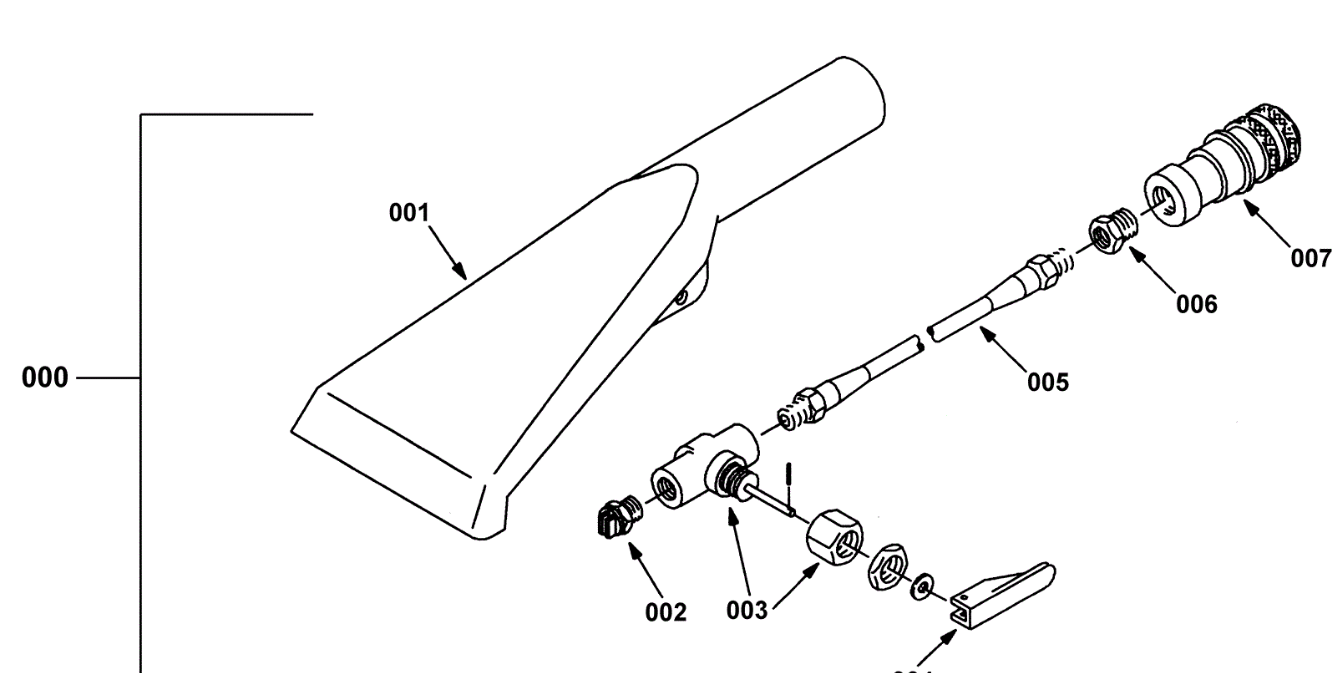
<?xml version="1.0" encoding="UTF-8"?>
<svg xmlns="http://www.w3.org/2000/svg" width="1336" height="673">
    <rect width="100%" height="100%" fill="#FFFFFF"/>
    <image x="21" y="55" width="1311" height="618" href="img_01.png"/>
</svg>
